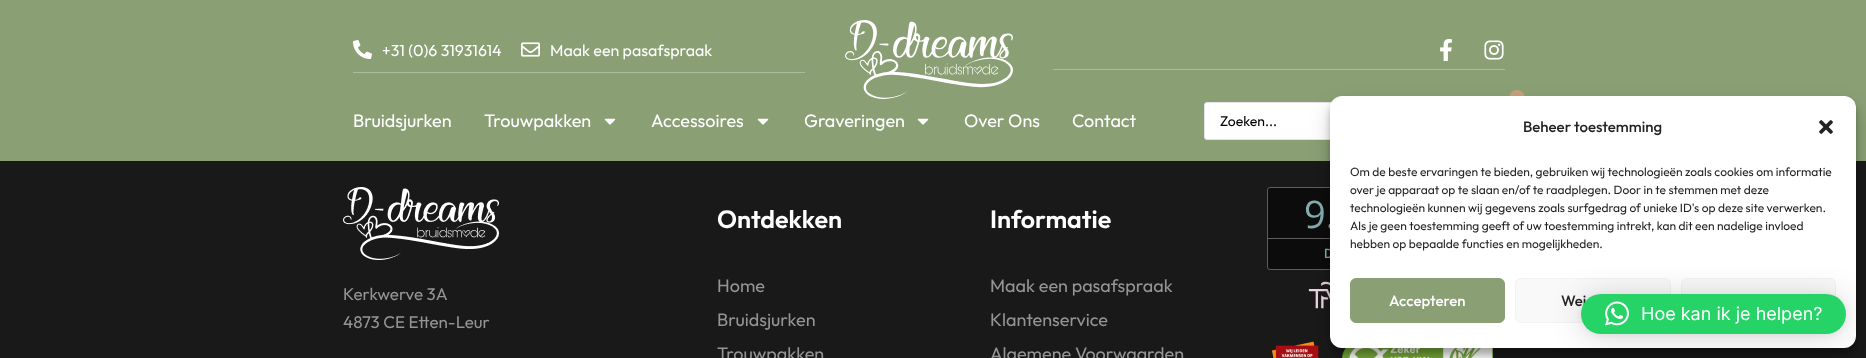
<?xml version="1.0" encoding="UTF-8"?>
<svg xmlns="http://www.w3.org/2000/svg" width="1866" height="358">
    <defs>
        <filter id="blur1" x="-50%" y="-200%" width="200%" height="500%"><feGaussianBlur stdDeviation="3"/></filter>
        <filter id="blur2" x="-50%" y="-200%" width="200%" height="500%"><feGaussianBlur stdDeviation="10"/></filter>
        <filter id="blur3" x="-50%" y="-200%" width="200%" height="500%"><feGaussianBlur stdDeviation="16"/></filter>
    </defs>
    <rect width="100%" height="100%" fill="#191919"/>
    <rect x="0" y="0" width="1866" height="161" fill="#8A9F73"/>
    <image x="353" y="40" width="19" height="19" href="img_01.png"/>
    <text x="382" y="56" font-family="Outfit" font-size="16" fill="#FFFFFF">+31 (0)6 31931614</text>
    <image x="521" y="42" width="19" height="15" href="img_02.png"/>
    <text x="550" y="56" font-family="Outfit" font-size="16" fill="#FFFFFF">Maak een pasafspraak</text>
    <rect x="353" y="72" width="452" height="1" fill="#ACBB9C"/>
    <image x="845" y="20" width="168" height="79" href="img_03.png"/>
    <image x="1440" y="39" width="12" height="22" href="img_04.png"/>
    <image x="1484" y="40" width="20" height="20" href="img_05.png"/>
    <rect x="1053" y="69" width="452" height="1" fill="#ACBB9C"/>
    <circle cx="1517" cy="98" r="8" fill="#C6A07A"/>
    <text x="353" y="127" font-family="Outfit" font-size="18" fill="#FFFFFF">Bruidsjurken</text>
    <text x="484" y="127" font-family="Outfit" font-size="18" fill="#FFFFFF">Trouwpakken</text>
    <image x="604" y="118" width="12" height="7" href="img_06.png"/>
    <text x="651" y="127" font-family="Outfit" font-size="18" fill="#FFFFFF">Accessoires</text>
    <image x="757" y="118" width="12" height="7" href="img_06.png"/>
    <text x="804" y="127" font-family="Outfit" font-size="18" fill="#FFFFFF">Graveringen</text>
    <image x="917" y="118" width="12" height="7" href="img_06.png"/>
    <text x="964" y="127" font-family="Outfit" font-size="18" fill="#FFFFFF">Over Ons</text>
    <text x="1072" y="127" font-family="Outfit" font-size="18" fill="#FFFFFF">Contact</text>
    <rect x="1204.5" y="102.5" width="190" height="37" rx="2.5" fill="#FFFFFF" stroke="#E1E5EB"/>
    <text x="1220" y="126" font-family="Outfit" font-size="14" fill="#000000">Zoeken...</text>
    <image x="343" y="187" width="156" height="73" href="img_07.png"/>
    <text font-family="Outfit" font-size="17" fill="#949494">
        <tspan x="343" y="300">Kerkwerve 3A</tspan>
        <tspan x="343" y="328">4873 CE Etten-Leur</tspan>
    </text>
    <text x="717" y="228" font-family="Outfit" font-size="25" font-weight="600" fill="#FFFFFF">Ontdekken</text>
    <text font-family="Outfit" font-size="18" fill="#949494">
        <tspan x="717" y="292">Home</tspan>
        <tspan x="717" y="326">Bruidsjurken</tspan>
        <tspan x="717" y="360">Trouwpakken</tspan>
    </text>
    <text x="990" y="228" font-family="Outfit" font-size="25" font-weight="600" fill="#FFFFFF">Informatie</text>
    <text font-family="Outfit" font-size="18" fill="#949494">
        <tspan x="990" y="292">Maak een pasafspraak</tspan>
        <tspan x="990" y="326">Klantenservice</tspan>
        <tspan x="990" y="360">Algemene Voorwaarden</tspan>
    </text>
    <image x="1267" y="187" width="63" height="122" href="img_08.png"/>
    <image x="1271" y="341" width="48" height="17" href="img_09.png"/>
    <image x="1342" y="348" width="151" height="10" href="img_10.png"/>
    <rect x="1330" y="102" width="526" height="252" rx="12" fill="#000000" fill-opacity="0.23" filter="url(#blur1)"/>
    <rect x="1330" y="106" width="526" height="252" rx="12" fill="#000000" fill-opacity="0.19" filter="url(#blur2)"/>
    <rect x="1330" y="96" width="526" height="252" rx="12" fill="#FFFFFF"/>
    <text x="1523" y="132" font-family="Outfit" font-size="15" font-weight="500" fill="#222222">Beheer toestemming</text>
    <image x="1819" y="120" width="14" height="14" href="img_11.png"/>
    <text font-family="Outfit" font-size="12" fill="#222222">
        <tspan x="1350" y="176">Om de beste ervaringen te bieden, gebruiken wij technologieën zoals cookies om informatie</tspan>
        <tspan x="1350" y="194">over je apparaat op te slaan en/of te raadplegen. Door in te stemmen met deze</tspan>
        <tspan x="1350" y="212">technologieën kunnen wij gegevens zoals surfgedrag of unieke ID's op deze site verwerken.</tspan>
        <tspan x="1350" y="230">Als je geen toestemming geeft of uw toestemming intrekt, kan dit een nadelige invloed</tspan>
        <tspan x="1350" y="248">hebben op bepaalde functies en mogelijkheden.</tspan>
    </text>
    <rect x="1350.5" y="278.5" width="154" height="44" rx="5.5" fill="#8A9F73" stroke="#8A9F73"/>
    <text x="1389" y="306" font-family="Outfit" font-size="15" font-weight="500" fill="#FFFFFF">Accepteren</text>
    <rect x="1515.5" y="278.5" width="155" height="44" rx="5.5" fill="#F9F9F9" stroke="#F2F2F2"/>
    <text x="1561" y="306" font-family="Outfit" font-size="15" font-weight="500" fill="#222222">Wei</text>
    <rect x="1681.5" y="278.5" width="154" height="44" rx="5.5" fill="#F9F9F9" stroke="#F2F2F2"/>
    <rect x="1581" y="296" width="265" height="40" rx="20" fill="#000000" fill-opacity="0.16" filter="url(#blur3)"/>
    <rect x="1581" y="295" width="265" height="40" rx="20" fill="#000000" fill-opacity="0.06" filter="url(#blur1)"/>
    <rect x="1581" y="294" width="265" height="40" rx="20" fill="#25D366"/>
    <image x="1605" y="301" width="24" height="25" href="img_12.png"/>
    <text x="1641" y="320" font-family="Inter" font-size="18" fill="#FFFFFF">Hoe kan ik je helpen?</text>
</svg>
